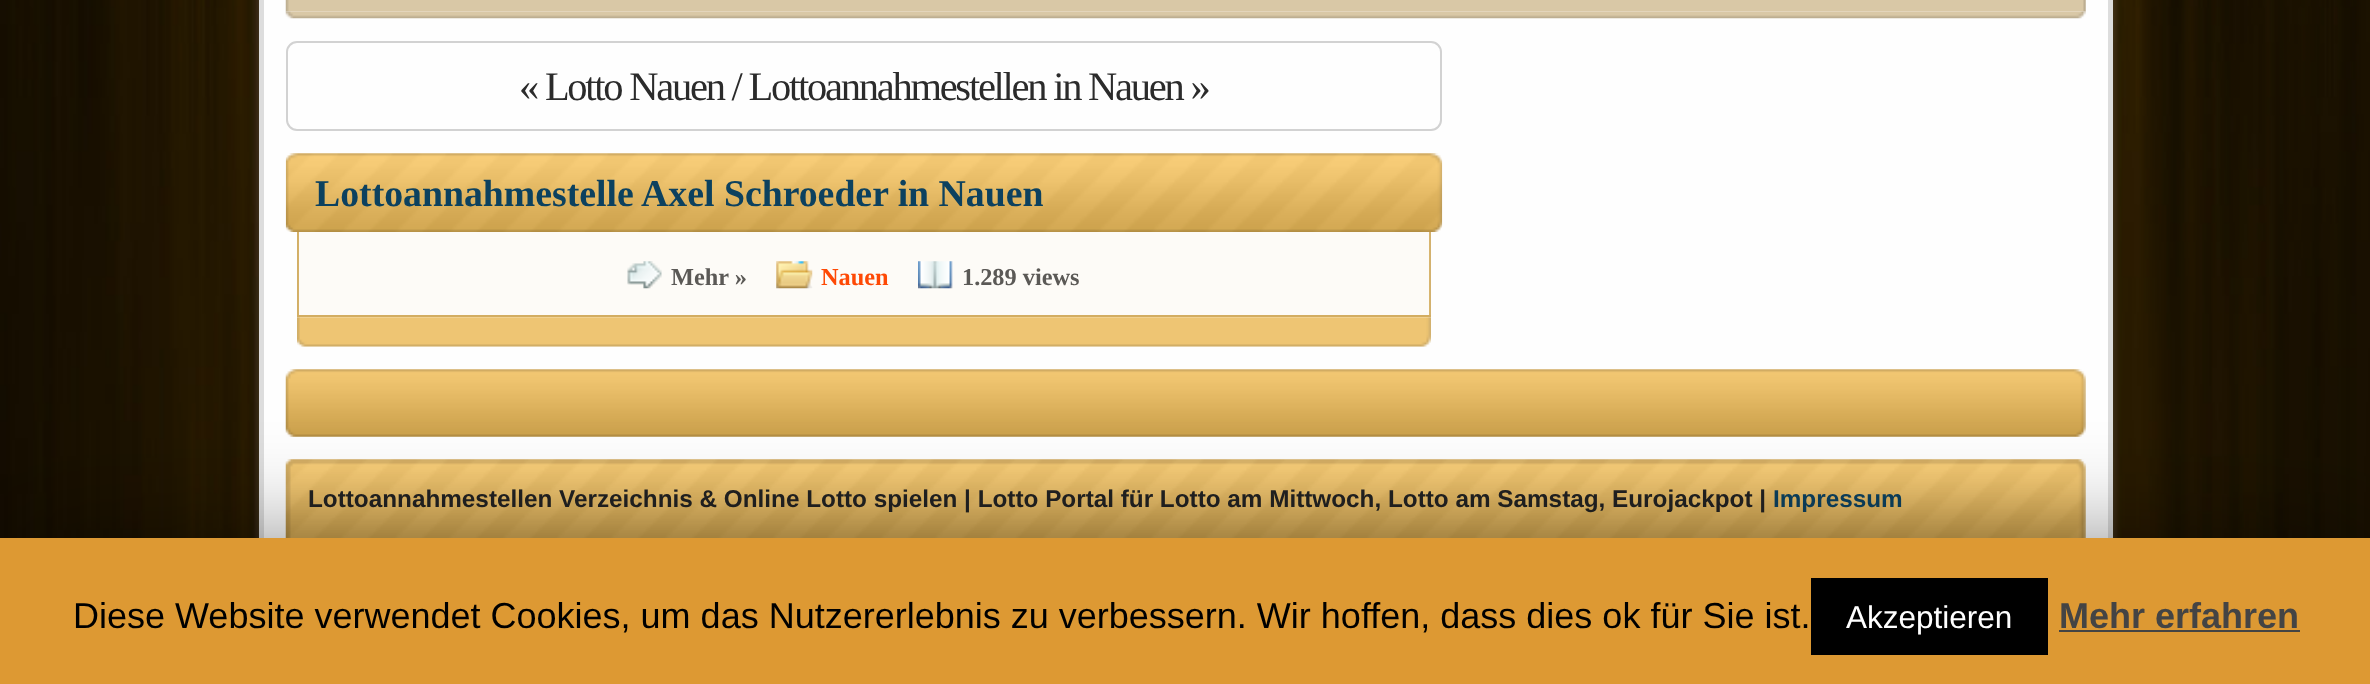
<?xml version="1.0" encoding="UTF-8"?>
<svg xmlns="http://www.w3.org/2000/svg" width="2370" height="684">
    <defs>
        <filter id="blur1" x="-50%" y="-200%" width="200%" height="500%"><feGaussianBlur stdDeviation="56"/></filter>
    </defs>
    <rect width="100%" height="100%" fill="#FFFFFF"/>
    <image x="0" y="0" width="2370" height="538" href="img_01.png"/>
    <rect x="264" y="0" width="1844" height="538" fill="#FEFEFE"/>
    <rect x="261.5" y="-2.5" width="1849" height="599" fill="none" stroke="#DDDDDD" stroke-width="5"/>
    <image x="285" y="0" width="1801" height="12" href="img_02.png"/>
    <image x="285" y="11" width="1801" height="8" href="img_03.png"/>
    <rect x="287" y="42" width="1154" height="88" rx="10" fill="none" stroke="#D2D2D2" stroke-width="2"/>
    <text x="519" y="100" font-family="Liberation Serif" font-size="40.5" letter-spacing="-2.25" fill="#2B2B2B">« Lotto Nauen / Lottoannahmestellen in Nauen »</text>
    <image x="285" y="153" width="1158" height="79" href="img_04.png"/>
    <text x="315" y="206" font-family="Liberation Serif" font-size="37.75" font-weight="700" fill="#0C415F">Lottoannahmestelle Axel Schroeder in Nauen</text>
    <image x="297" y="232" width="1134" height="86" href="img_05.png"/>
    <rect x="297" y="315" width="1134" height="2" fill="#D1AC61" fill-opacity="0.96"/>
    <rect x="299" y="232" width="1130" height="83" fill="#FDFDFD" fill-opacity="0.96"/>
    <image x="627" y="261" width="35" height="28" href="img_06.png"/>
    <text x="671" y="285" font-family="Liberation Serif" font-size="24.3" font-weight="700" fill="#5B5956">Mehr »</text>
    <image x="776" y="261" width="37" height="28" href="img_07.png"/>
    <text x="821" y="285" font-family="Liberation Serif" font-size="24.3" font-weight="700" fill="#FE4905">Nauen</text>
    <image x="918" y="261" width="35" height="28" href="img_08.png"/>
    <text x="962" y="285" font-family="Liberation Serif" font-size="24.3" font-weight="700" fill="#5B5956">1.289 views</text>
    <image x="297" y="317" width="1134" height="30" href="img_09.png"/>
    <image x="285" y="369" width="1801" height="68" href="img_10.png"/>
    <image x="285" y="459" width="1801" height="79" href="img_11.png"/>
    <text x="308" y="507" font-family="Liberation Sans" font-size="24.3" font-weight="700" fill="#222222">Lottoannahmestellen Verzeichnis &amp; Online Lotto spielen | Lotto Portal für Lotto am Mittwoch, Lotto am Samstag, Eurojackpot |</text>
    <text x="1773" y="507" font-family="Liberation Sans" font-size="24.3" font-weight="700" fill="#0C415F">Impressum</text>
    <rect x="0" y="549" width="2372" height="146" fill="#000000" fill-opacity="0.5" filter="url(#blur1)"/>
    <rect x="0" y="538" width="2370" height="146" fill="#DD9933"/>
    <text x="73" y="628" font-family="Liberation Sans" font-size="36" fill="#000000">Diese Website verwendet Cookies, um das Nutzererlebnis zu verbessern. Wir hoffen, dass dies ok für Sie ist.</text>
    <rect x="1811" y="578" width="237" height="77" fill="#000000"/>
    <text x="1846" y="628" font-family="Liberation Sans" font-size="31.5" fill="#FFFFFF">Akzeptieren</text>
    <text x="2059" y="628" font-family="Liberation Sans" font-size="36" font-weight="700" fill="#444444">Mehr erfahren</text>
    <rect x="2059" y="630" width="241" height="2" fill="#444444"/>
</svg>
